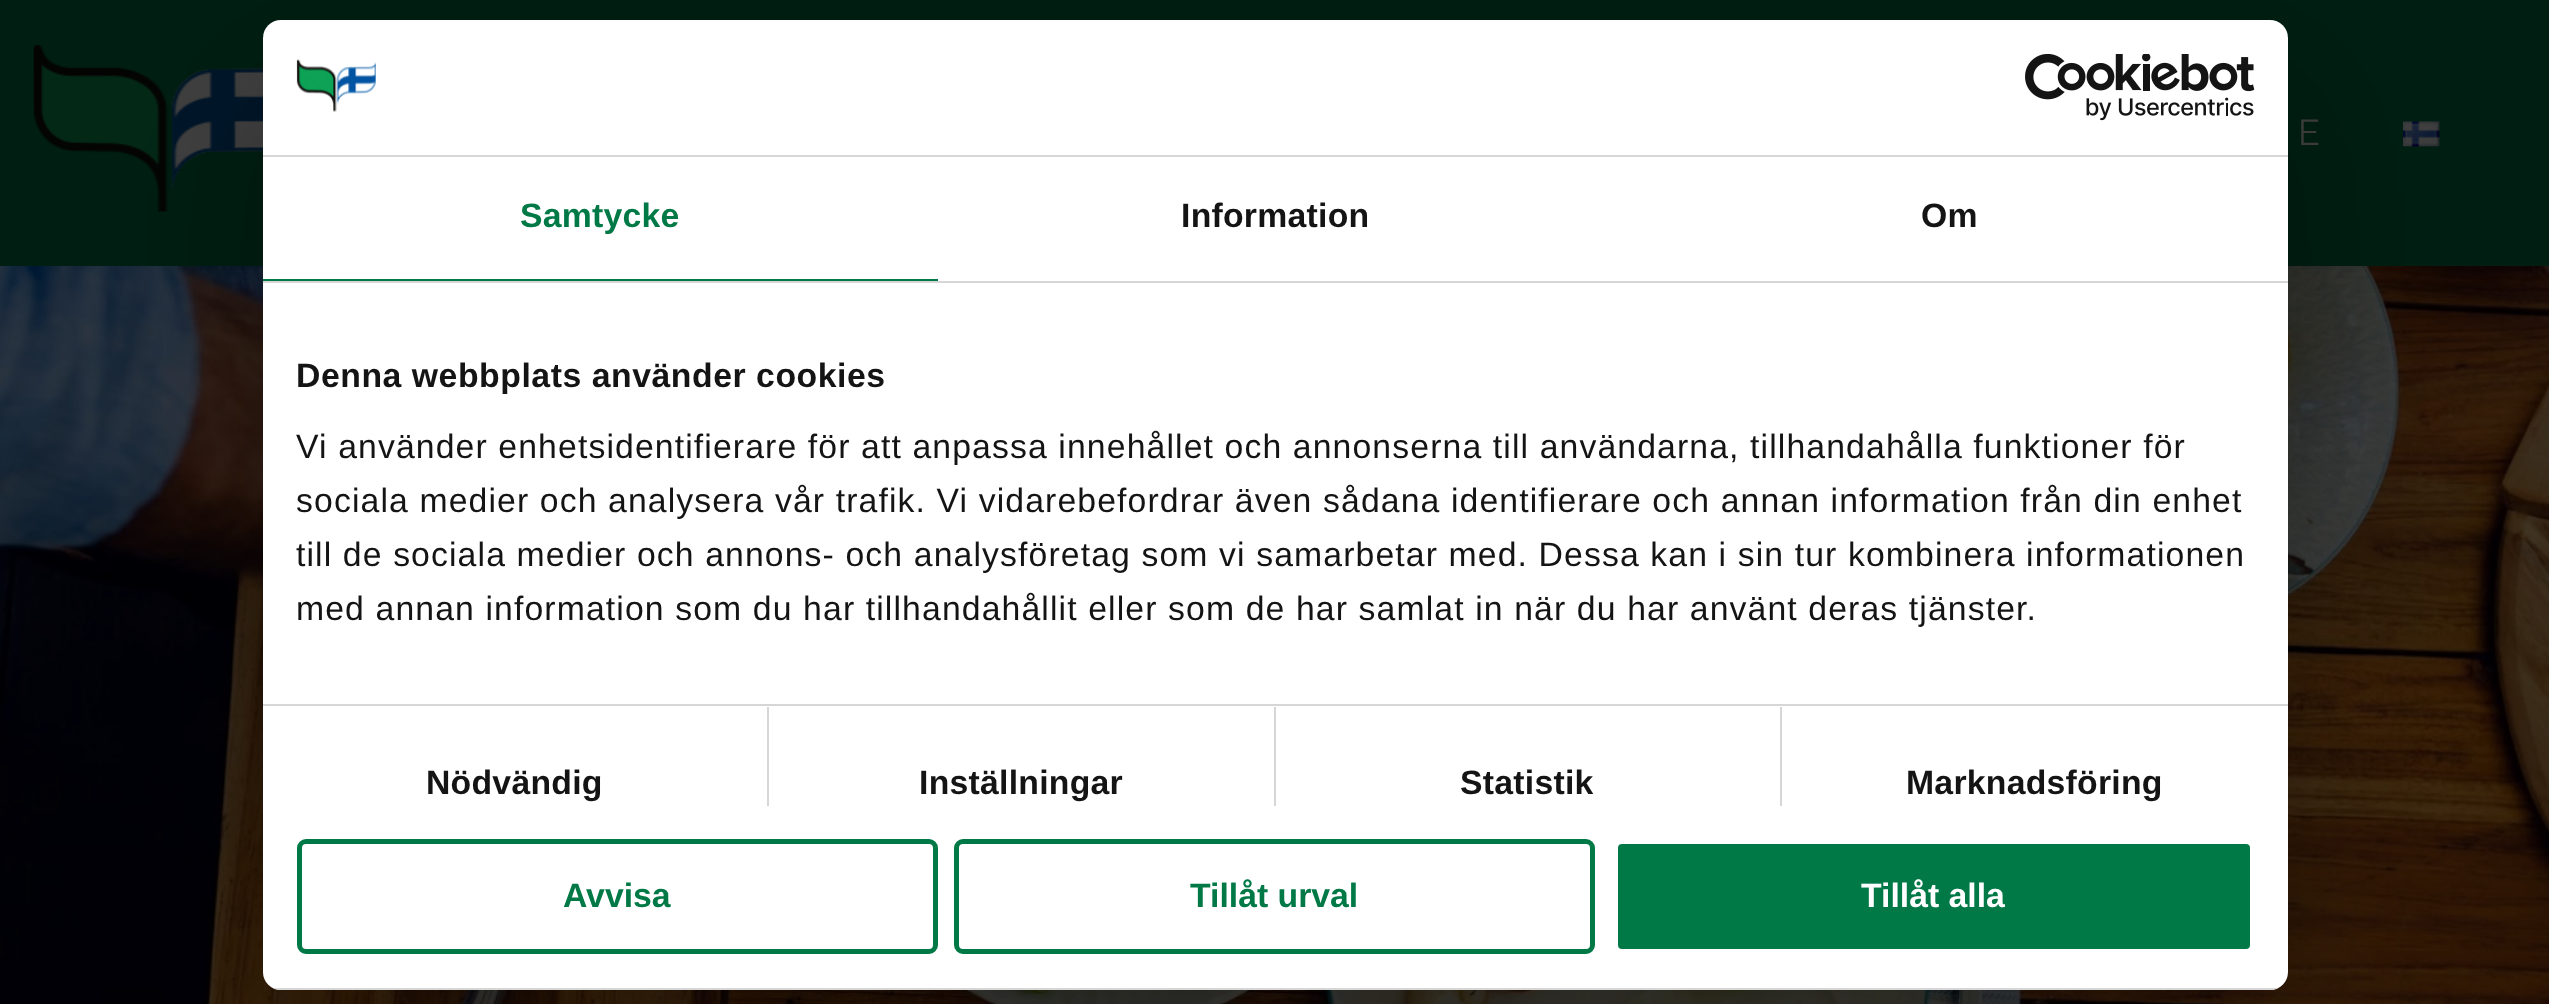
<?xml version="1.0" encoding="UTF-8"?>
<svg xmlns="http://www.w3.org/2000/svg" width="2549" height="1004">
    <defs>
        <filter id="blur1" x="-50%" y="-200%" width="200%" height="500%"><feGaussianBlur stdDeviation="76.5"/></filter>
        <clipPath id="clip1"><rect x="263" y="20" width="2025" height="970" rx="18"/></clipPath>
    </defs>
    <rect width="100%" height="100%" fill="#FFFFFF"/>
    <rect x="0" y="0" width="2549" height="266" fill="#001E12"/>
    <image x="33" y="45" width="230" height="167" href="img_01.png"/>
    <text x="2298" y="145" font-family="Raleway" font-size="36" fill="#404040">E</text>
    <image x="2403" y="121" width="37" height="26" href="img_02.png"/>
    <image x="0" y="266" width="2549" height="738" href="img_05.png"/>
    <rect x="263" y="92" width="2025" height="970" rx="18" fill="#000000" fill-opacity="0.3" filter="url(#blur1)"/>
    <rect x="263" y="20" width="2025" height="970" rx="18" fill="#FFFFFF"/>
    <rect x="263" y="155" width="2025" height="2" fill="#D6D6D6"/>
    <image x="296" y="59" width="80" height="53" href="img_03.png"/>
    <image x="2025" y="54" width="230" height="67" href="img_04.png"/>
    <rect x="263" y="281" width="2025" height="2" fill="#D6D6D6"/>
    <rect x="263" y="279" width="675" height="2" fill="#007946"/>
    <text x="520" y="227" font-family="Liberation Sans" font-size="33.75" font-weight="700" letter-spacing="0.25" fill="#007946">Samtycke</text>
    <text x="1181" y="227" font-family="Liberation Sans" font-size="33.75" font-weight="700" letter-spacing="0.25" fill="#141414">Information</text>
    <text x="1921" y="227" font-family="Liberation Sans" font-size="33.75" font-weight="700" letter-spacing="0.25" fill="#141414">Om</text>
    <rect x="263" y="704" width="2025" height="2" fill="#D6D6D6"/>
    <text x="296" y="387" font-family="Liberation Sans" font-size="33.75" font-weight="700" letter-spacing="0.55" fill="#141414">Denna webbplats använder cookies</text>
    <text font-family="Liberation Sans" font-size="33.75" letter-spacing="1.12" fill="#141414">
        <tspan x="296" y="458">Vi använder enhetsidentifierare för att anpassa innehållet och annonserna till användarna, tillhandahålla funktioner för</tspan>
        <tspan x="296" y="512">sociala medier och analysera vår trafik. Vi vidarebefordrar även sådana identifierare och annan information från din enhet</tspan>
        <tspan x="296" y="566">till de sociala medier och annons- och analysföretag som vi samarbetar med. Dessa kan i sin tur kombinera informationen</tspan>
        <tspan x="296" y="620">med annan information som du har tillhandahållit eller som de har samlat in när du har använt deras tjänster.</tspan>
    </text>
    <rect x="767" y="707" width="2" height="99" fill="#D6D6D6"/>
    <text x="426" y="794" font-family="Liberation Sans" font-size="33.75" font-weight="700" letter-spacing="0.25" fill="#141414">Nödvändig</text>
    <rect x="1274" y="707" width="2" height="99" fill="#D6D6D6"/>
    <text x="919" y="794" font-family="Liberation Sans" font-size="33.75" font-weight="700" letter-spacing="0.25" fill="#141414">Inställningar</text>
    <rect x="1780" y="707" width="2" height="99" fill="#D6D6D6"/>
    <text x="1460" y="794" font-family="Liberation Sans" font-size="33.75" font-weight="700" letter-spacing="0.25" fill="#141414">Statistik</text>
    <text x="1906" y="794" font-family="Liberation Sans" font-size="33.75" font-weight="700" letter-spacing="0.25" fill="#141414">Marknadsföring</text>
    <g clip-path="url(#clip1)">
        <rect x="273" y="988" width="2005" height="2" fill="#D6D6D6"/>
    </g>
    <rect x="299.5" y="841.5" width="636" height="110" rx="6.5" fill="none" stroke="#007946" stroke-width="5"/>
    <text x="563" y="907" font-family="Liberation Sans" font-size="33.75" font-weight="700" fill="#007946">Avvisa</text>
    <rect x="956.5" y="841.5" width="636" height="110" rx="6.5" fill="none" stroke="#007946" stroke-width="5"/>
    <text x="1190" y="907" font-family="Liberation Sans" font-size="33.75" font-weight="700" fill="#007946">Tillåt urval</text>
    <rect x="1615.5" y="841.5" width="637" height="110" rx="6.5" fill="#007946" stroke="#FFFFFF" stroke-width="5"/>
    <text x="1861" y="907" font-family="Liberation Sans" font-size="33.75" font-weight="700" fill="#FFFFFF">Tillåt alla</text>
</svg>
